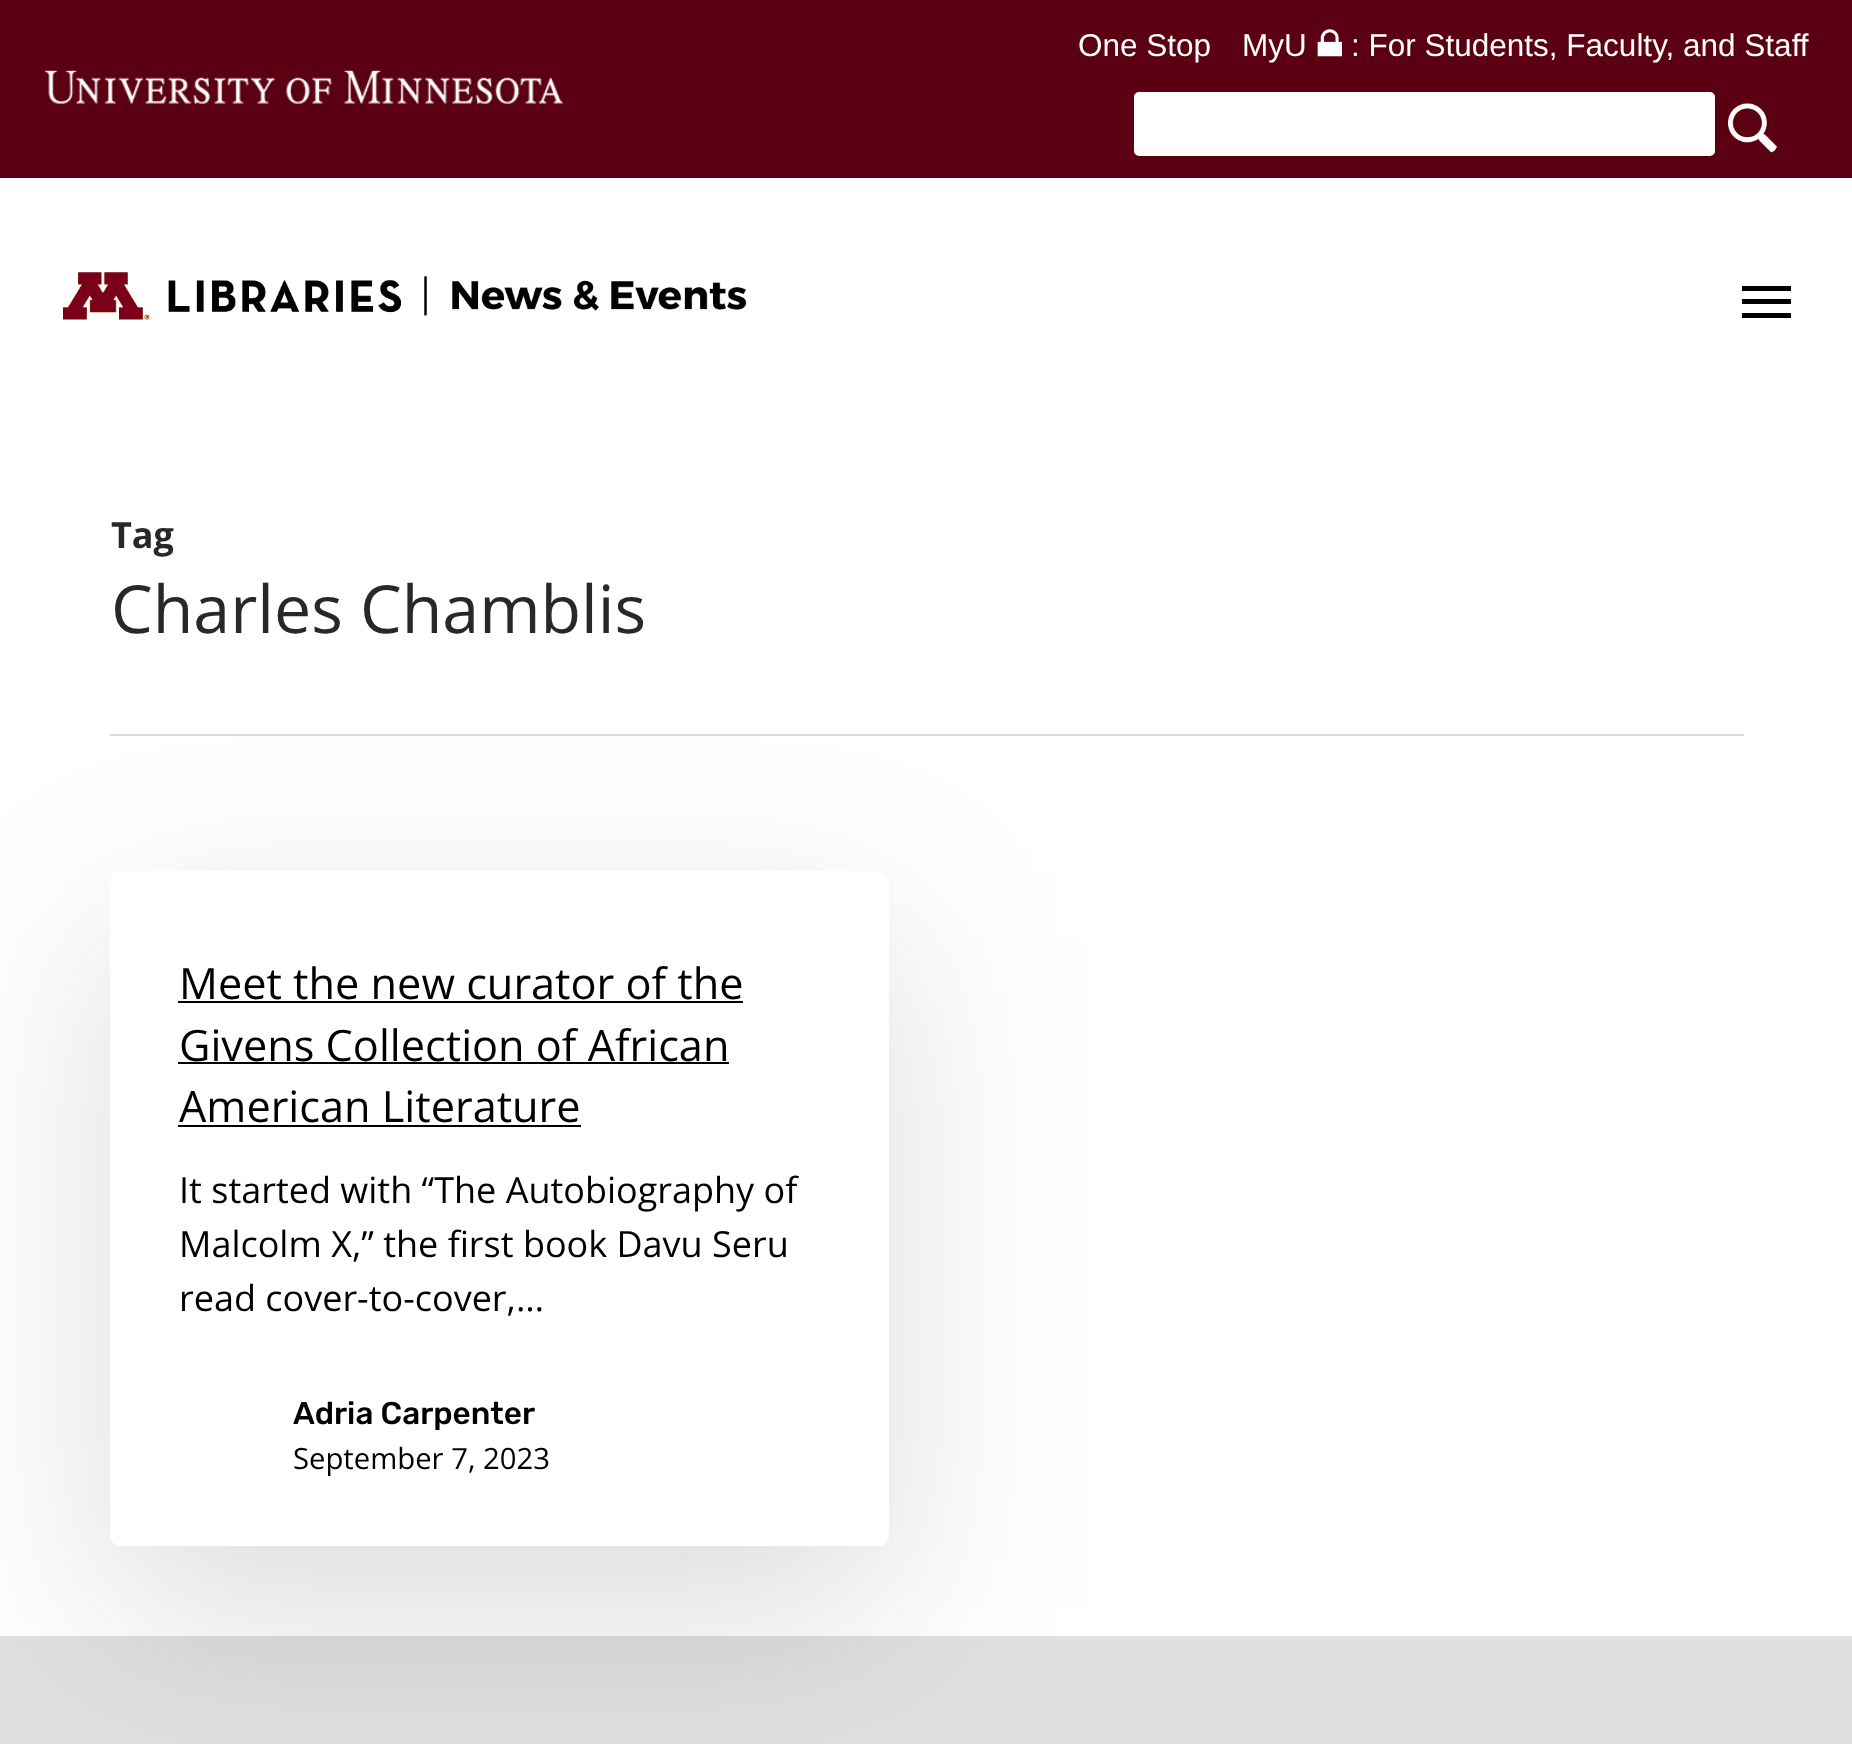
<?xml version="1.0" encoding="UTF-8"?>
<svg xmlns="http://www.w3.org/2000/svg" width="1852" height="1744">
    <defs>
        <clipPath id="clip1"><path d="M 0 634 H 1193 V 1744 H 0 Z M 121 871 H 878 C 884 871 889 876 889 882 V 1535 C 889 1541 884 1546 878 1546 H 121 C 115 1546 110 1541 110 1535 V 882 C 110 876 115 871 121 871 Z" clip-rule="evenodd"/></clipPath>
        <filter id="blur1" x="-50%" y="-200%" width="200%" height="500%"><feGaussianBlur stdDeviation="101"/></filter>
    </defs>
    <rect width="100%" height="100%" fill="#FFFFFF"/>
    <rect x="0" y="0" width="1852" height="178" fill="#5B0013"/>
    <text x="1078" y="56" font-family="Liberation Sans" font-size="31.5" fill="#FFFFFF">One Stop</text>
    <text x="1242" y="56" font-family="Liberation Sans" font-size="31.5" fill="#FFFFFF">MyU</text>
    <image x="1317" y="29" width="25" height="28" href="img_01.png"/>
    <text x="1351" y="56" font-family="Liberation Sans" font-size="31.5" fill="#FFFFFF">: For Students, Faculty, and Staff</text>
    <rect x="1133" y="91" width="583" height="66" rx="6" fill="#FFFFFF" stroke="#5B0013" stroke-width="2"/>
    <image x="1728" y="103" width="49" height="50" href="img_02.png"/>
    <image x="45" y="70" width="518" height="34" href="img_03.png"/>
    <image x="63" y="272" width="684" height="48" href="img_04.png"/>
    <rect x="1742" y="286" width="49" height="5" fill="#000000"/>
    <rect x="1742" y="313" width="49" height="5" fill="#000000"/>
    <rect x="1742" y="299" width="49" height="5" fill="#000000"/>
    <rect x="0" y="1636" width="1852" height="108" fill="#E0E0E0"/>
    <g clip-path="url(#clip1)">
        <rect x="110" y="938" width="779" height="675" rx="11" fill="#000000" fill-opacity="0.14" filter="url(#blur1)"/>
    </g>
    <rect x="110" y="734" width="1634" height="2" fill="#D8D8D8"/>
    <text x="111" y="548" font-family="Open Sans" font-size="36" font-weight="700" fill="#282828">Tag</text>
    <text x="111" y="633" font-family="Open Sans" font-size="66.25" fill="#282828">Charles Chamblis</text>
    <path d="M 110 884 H 889 V 1535 C 889 1541 884 1546 878 1546 H 121 C 115 1546 110 1541 110 1535 Z" fill="#FFFFFF"/>
    <text x="179" y="999" font-family="Open Sans" font-size="43.25" fill="#000000">Meet the new curator of the</text>
    <rect x="178" y="1001" width="565" height="2" fill="#000000"/>
    <text x="179" y="1061" font-family="Open Sans" font-size="43.25" fill="#000000">Givens Collection of African</text>
    <rect x="178" y="1062" width="551" height="2" fill="#000000"/>
    <text x="179" y="1122" font-family="Open Sans" font-size="43.25" fill="#000000">American Literature</text>
    <rect x="178" y="1125" width="403" height="2" fill="#000000"/>
    <text font-family="Open Sans" font-size="36" fill="#000000">
        <tspan x="179" y="1203">It started with “The Autobiography of</tspan>
        <tspan x="179" y="1257">Malcolm X,” the first book Davu Seru</tspan>
        <tspan x="179" y="1311">read cover-to-cover,…</tspan>
    </text>
    <text x="293" y="1424" font-family="Rubik" font-size="31.5" font-weight="300" fill="#000000">Adria Carpenter</text>
    <text x="293" y="1469" font-family="Open Sans" font-size="29.25" fill="#000000">September 7, 2023</text>
</svg>
